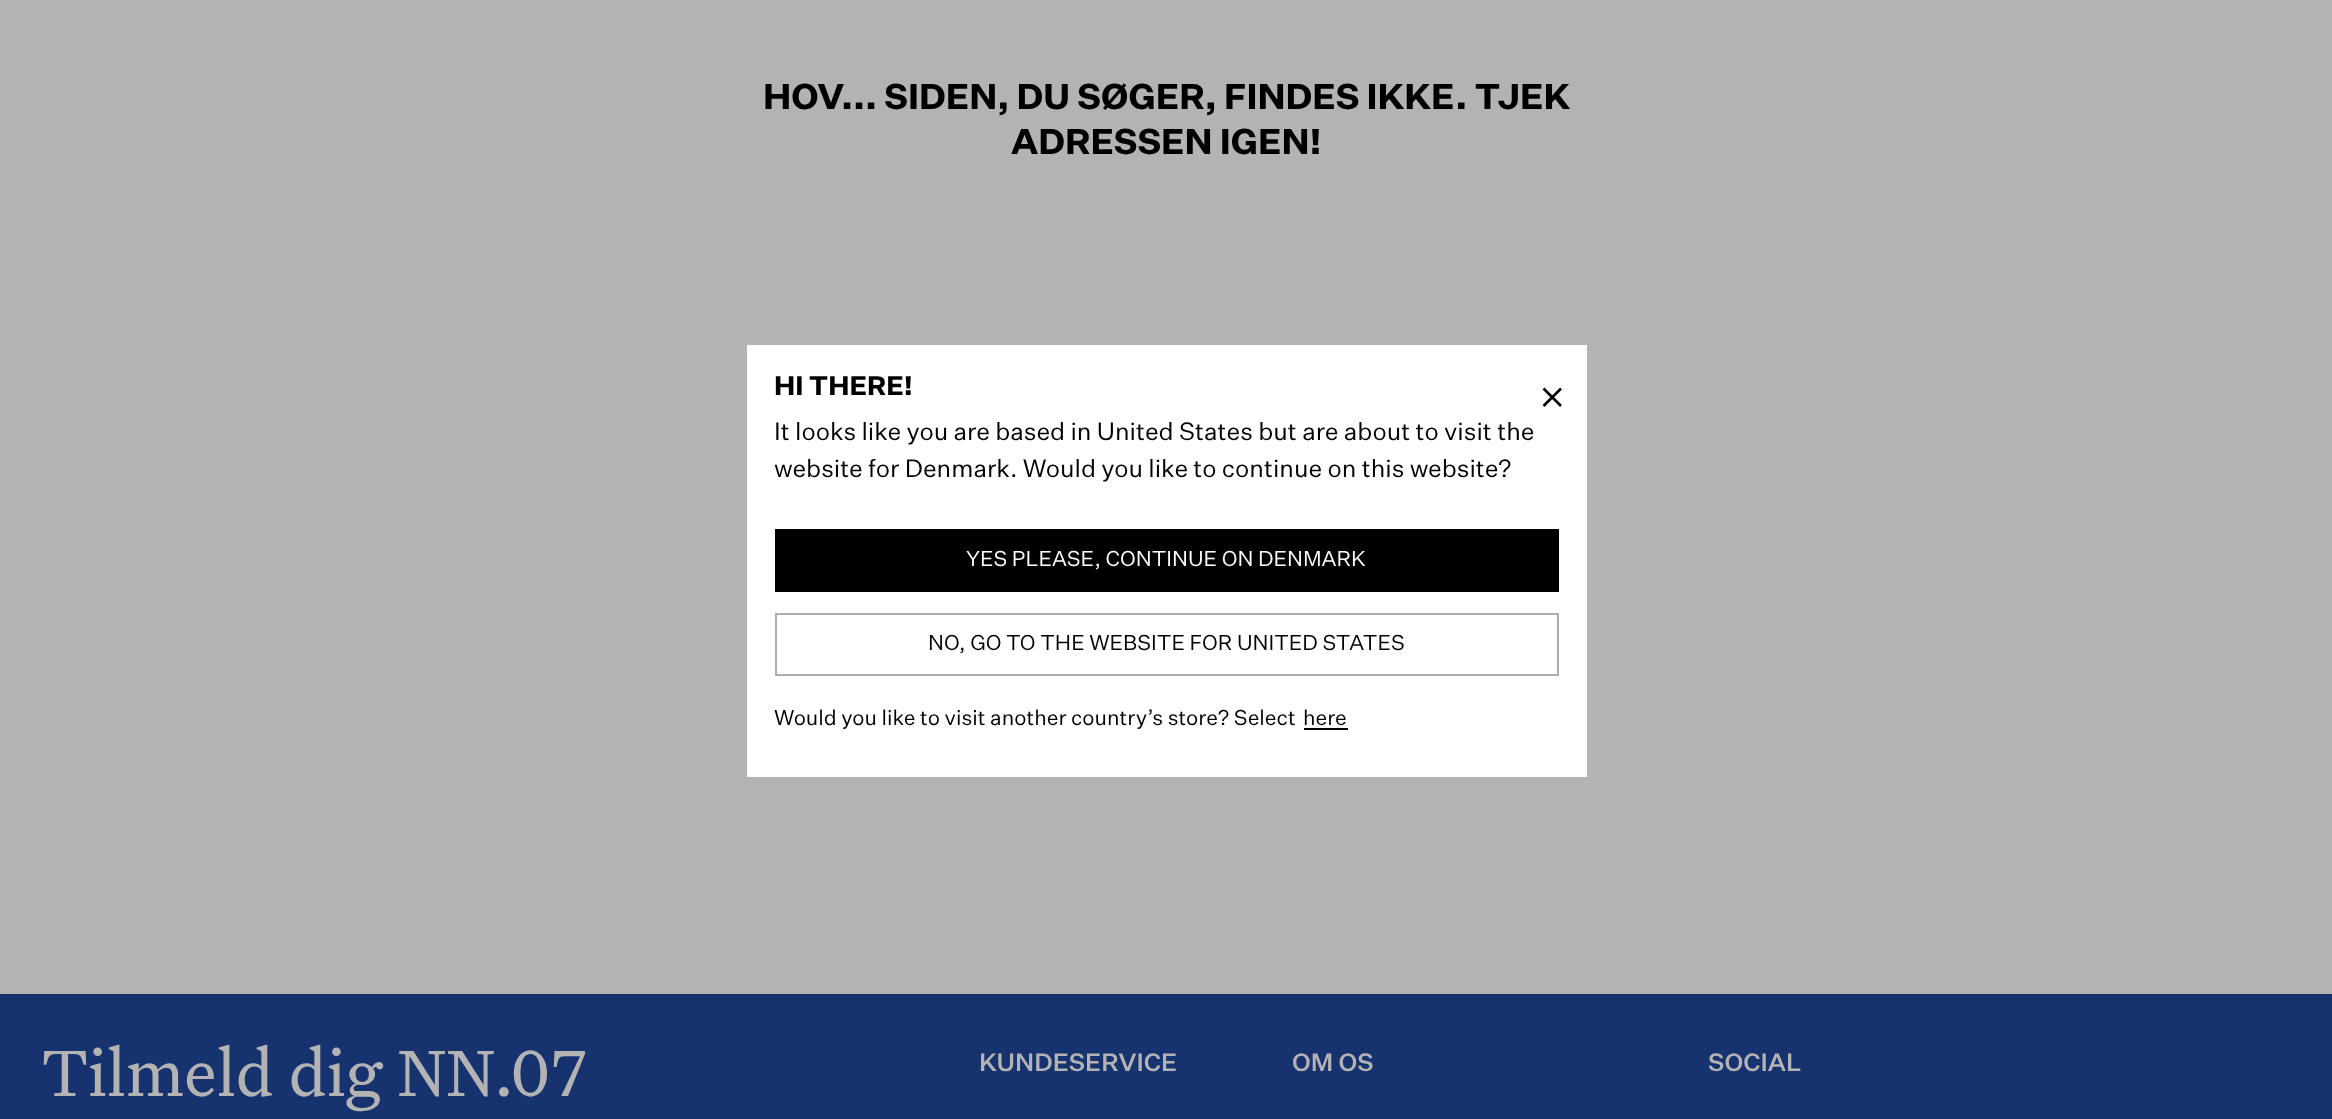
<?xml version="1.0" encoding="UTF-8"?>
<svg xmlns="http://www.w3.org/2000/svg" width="2332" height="1119">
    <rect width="100%" height="100%" fill="#B3B3B3"/>
    <text x="763" y="109" font-family="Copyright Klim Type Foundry" font-size="35" font-weight="700" fill="#000000">HOV... SIDEN, DU SØGER, FINDES IKKE. TJEK</text>
    <text x="1011" y="154" font-family="Copyright Klim Type Foundry" font-size="35" font-weight="700" fill="#000000">ADRESSEN IGEN!</text>
    <rect x="0" y="994" width="2332" height="125" fill="#16326F"/>
    <text x="42" y="1096" font-family="Copyright Klim Type Foundry" font-size="70" fill="#B3B3B3">Tilmeld dig NN.07</text>
    <text x="979" y="1071" font-family="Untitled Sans" font-size="24.5" font-weight="500" fill="#B3B3B3">KUNDESERVICE</text>
    <text x="1292" y="1071" font-family="Untitled Sans" font-size="24.5" font-weight="500" fill="#B3B3B3">OM OS</text>
    <text x="1708" y="1071" font-family="Untitled Sans" font-size="24.5" font-weight="500" fill="#B3B3B3">SOCIAL</text>
    <rect x="747" y="345" width="840" height="432" fill="#FFFFFF"/>
    <text x="774" y="395" font-family="Copyright Klim Type Foundry" font-size="26.25" font-weight="700" fill="#000000">HI THERE!</text>
    <text font-family="'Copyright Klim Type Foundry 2'" font-size="24.5" fill="#000000">
        <tspan x="774" y="440">It looks like you are based in United States but are about to visit the</tspan>
        <tspan x="774" y="477">website for Denmark. Would you like to continue on this website?</tspan>
    </text>
    <rect x="775" y="529" width="784" height="63" fill="#000000"/>
    <text x="966" y="566" font-family="'Copyright Klim Type Foundry 2'" font-size="21" fill="#FFFFFF">YES PLEASE, CONTINUE ON DENMARK</text>
    <rect x="776" y="614" width="782" height="61" fill="none" stroke="#ADADAD" stroke-width="2"/>
    <text x="928" y="650" font-family="'Copyright Klim Type Foundry 2'" font-size="21" fill="#000000">NO, GO TO THE WEBSITE FOR UNITED STATES</text>
    <text x="774" y="725" font-family="'Copyright Klim Type Foundry 2'" font-size="21" fill="#000000">Would you like to visit another country’s store? Select</text>
    <text x="1303" y="725" font-family="'Copyright Klim Type Foundry 2'" font-size="21" fill="#000000">here</text>
    <rect x="1304" y="728" width="44" height="2" fill="#000000"/>
    <path d="M 1561 388.5 L 1543.5 406 M 1561 406 L 1543.5 388.5" fill="none" stroke="#000000" stroke-width="2.6"/>
</svg>
